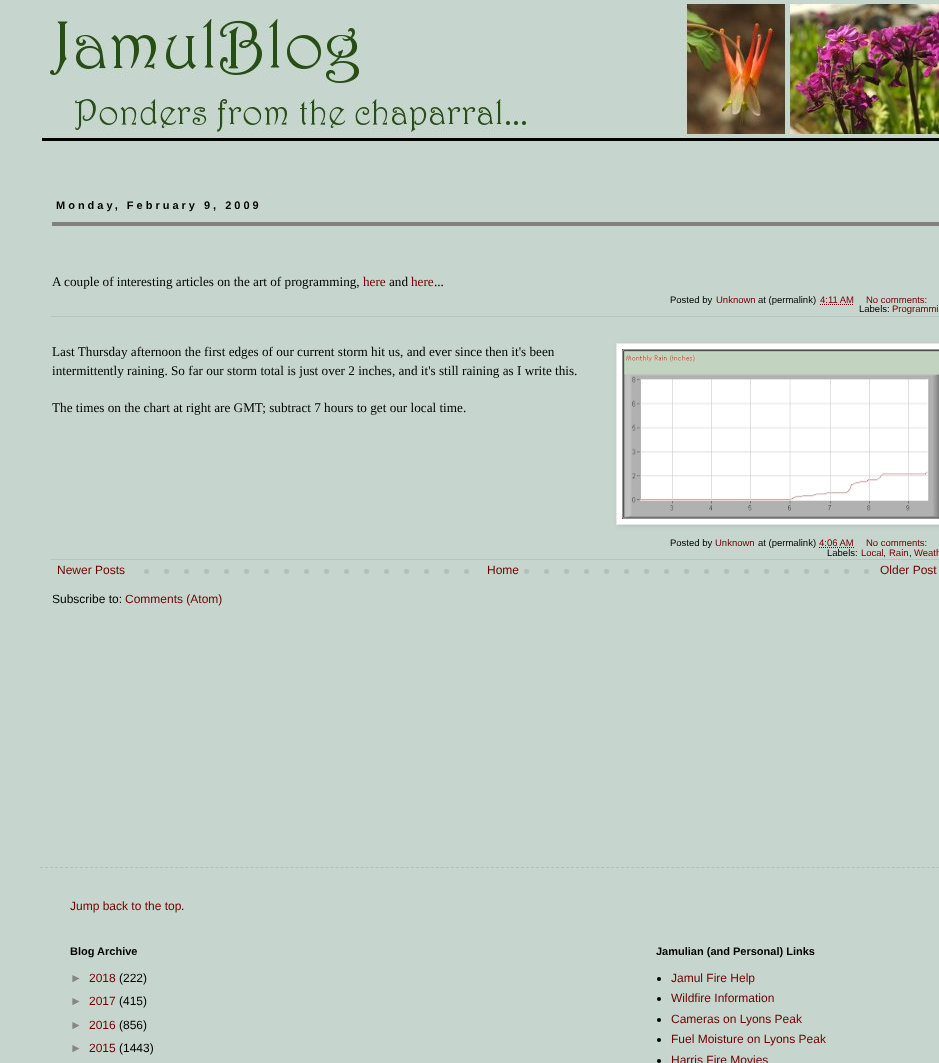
<?xml version="1.0" encoding="UTF-8"?>
<svg xmlns="http://www.w3.org/2000/svg" width="939" height="1063">
    <defs>
        <filter id="blur1" x="-50%" y="-200%" width="200%" height="500%"><feGaussianBlur stdDeviation="2.5"/></filter>
    </defs>
    <rect width="100%" height="100%" fill="#C6D6CF"/>
    <image x="40" y="3" width="899" height="141" href="img_01.png"/>
    <rect x="52" y="222" width="887" height="4" fill="#808080"/>
    <text x="56" y="209" font-family="Liberation Sans" font-size="11" font-weight="700" letter-spacing="3" fill="#000000">Monday, February 9, 2009</text>
    <text x="52" y="286" font-family="Liberation Serif" font-size="13.2" fill="#000000">A couple of interesting articles on the art of programming,</text>
    <text x="363" y="286" font-family="Liberation Serif" font-size="13.2" fill="#6E0000">here</text>
    <text x="389" y="286" font-family="Liberation Serif" font-size="13.2" fill="#000000">and</text>
    <text x="411" y="286" font-family="Liberation Serif" font-size="13.2" fill="#6E0000">here</text>
    <text x="434" y="286" font-family="Liberation Serif" font-size="13.2" fill="#000000">...</text>
    <rect x="50" y="316" width="889" height="1" fill="#B6C6BF"/>
    <text x="670" y="303" font-family="Liberation Sans" font-size="9.5" fill="#000000">Posted by</text>
    <text x="716" y="303" font-family="Liberation Sans" font-size="9.5" fill="#6E0000">Unknown</text>
    <text x="758" y="303" font-family="Liberation Sans" font-size="9.5" fill="#000000">at (permalink)</text>
    <text x="820" y="303" font-family="Liberation Sans" font-size="9.5" fill="#6E0000">4:11 AM</text>
    <path d="M 820 304.5 H 854" fill="none" stroke="#6E0000" stroke-dasharray="1 1"/>
    <text x="866" y="303" font-family="Liberation Sans" font-size="9.5" fill="#6E0000">No comments:</text>
    <text x="859" y="312" font-family="Liberation Sans" font-size="9.5" fill="#000000">Labels:</text>
    <text x="892" y="312" font-family="Liberation Sans" font-size="9.5" fill="#6E0000">Programmi</text>
    <text x="52" y="356" font-family="Liberation Serif" font-size="13.2" fill="#000000">Last Thursday afternoon the first edges of our current storm hit us, and ever since then it's been</text>
    <rect x="617" y="344" width="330" height="182" fill="#000000" fill-opacity="0.1" filter="url(#blur1)"/>
    <rect x="616.5" y="343.5" width="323" height="181" fill="#FFFFFF" stroke="#E7E7E7"/>
    <image x="622" y="349" width="317" height="170" href="img_02.png"/>
    <text x="52" y="375" font-family="Liberation Serif" font-size="13.2" fill="#000000">intermittently raining. So far our storm total is just over 2 inches, and it's still raining as I write this.</text>
    <text x="52" y="412" font-family="Liberation Serif" font-size="13.2" fill="#000000">The times on the chart at right are GMT; subtract 7 hours to get our local time.</text>
    <rect x="50" y="559" width="889" height="1" fill="#B6C6BF"/>
    <text x="670" y="546" font-family="Liberation Sans" font-size="9.5" fill="#000000">Posted by</text>
    <text x="715" y="546" font-family="Liberation Sans" font-size="9.5" fill="#6E0000">Unknown</text>
    <text x="758" y="546" font-family="Liberation Sans" font-size="9.5" fill="#000000">at (permalink)</text>
    <text x="819" y="546" font-family="Liberation Sans" font-size="9.5" fill="#6E0000">4:06 AM</text>
    <path d="M 819 547.5 H 854" fill="none" stroke="#6E0000" stroke-dasharray="1 1"/>
    <text x="866" y="546" font-family="Liberation Sans" font-size="9.5" fill="#6E0000">No comments:</text>
    <text x="827" y="556" font-family="Liberation Sans" font-size="9.5" fill="#000000">Labels:</text>
    <text x="861" y="556" font-family="Liberation Sans" font-size="9.5" fill="#6E0000">Local</text>
    <text x="883" y="556" font-family="Liberation Sans" font-size="9.5" fill="#000000">,</text>
    <text x="889" y="556" font-family="Liberation Sans" font-size="9.5" fill="#6E0000">Rain</text>
    <text x="909" y="556" font-family="Liberation Sans" font-size="9.5" fill="#000000">,</text>
    <text x="914" y="556" font-family="Liberation Sans" font-size="9.5" fill="#6E0000">Weath</text>
    <image x="144" y="569" width="725" height="5" href="img_03.png"/>
    <text x="57" y="574" font-family="Liberation Sans" font-size="12" fill="#6E0000">Newer Posts</text>
    <rect x="484" y="569" width="26" height="5" fill="#C6D6CF"/>
    <text x="487" y="574" font-family="Liberation Sans" font-size="12" fill="#6E0000">Home</text>
    <text x="880" y="574" font-family="Liberation Sans" font-size="12" fill="#6E0000">Older Post</text>
    <text x="52" y="603" font-family="Liberation Sans" font-size="12" fill="#000000">Subscribe to:</text>
    <text x="125" y="603" font-family="Liberation Sans" font-size="12" fill="#6E0000">Comments (Atom)</text>
    <path d="M 40 867.5 H 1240" fill="none" stroke="#BBBBBB" stroke-dasharray="3 2.01"/>
    <text x="70" y="910" font-family="Liberation Sans" font-size="12" fill="#6E0000">Jump back to the top</text>
    <text x="181" y="910" font-family="Liberation Sans" font-size="12" fill="#000000">.</text>
    <text x="70" y="955" font-family="Liberation Sans" font-size="11" font-weight="700" fill="#000000">Blog Archive</text>
    <text x="70" y="982" font-family="Liberation Sans" font-size="12" fill="#868686">►</text>
    <text x="89" y="982" font-family="Liberation Sans" font-size="12" fill="#6E0000">2018</text>
    <text x="119" y="982" font-family="Liberation Sans" font-size="12" fill="#000000">(222)</text>
    <text x="70" y="1005" font-family="Liberation Sans" font-size="12" fill="#868686">►</text>
    <text x="89" y="1005" font-family="Liberation Sans" font-size="12" fill="#6E0000">2017</text>
    <text x="119" y="1005" font-family="Liberation Sans" font-size="12" fill="#000000">(415)</text>
    <text x="70" y="1029" font-family="Liberation Sans" font-size="12" fill="#868686">►</text>
    <text x="89" y="1029" font-family="Liberation Sans" font-size="12" fill="#6E0000">2016</text>
    <text x="119" y="1029" font-family="Liberation Sans" font-size="12" fill="#000000">(856)</text>
    <text x="70" y="1052" font-family="Liberation Sans" font-size="12" fill="#868686">►</text>
    <text x="89" y="1052" font-family="Liberation Sans" font-size="12" fill="#6E0000">2015</text>
    <text x="119" y="1052" font-family="Liberation Sans" font-size="12" fill="#000000">(1443)</text>
    <text x="656" y="955" font-family="Liberation Sans" font-size="11" font-weight="700" fill="#000000">Jamulian (and Personal) Links</text>
    <circle cx="659" cy="979" r="2" fill="#000000"/>
    <text x="671" y="982" font-family="Liberation Sans" font-size="12" fill="#6E0000">Jamul Fire Help</text>
    <circle cx="659" cy="999" r="2" fill="#000000"/>
    <text x="671" y="1002" font-family="Liberation Sans" font-size="12" fill="#6E0000">Wildfire Information</text>
    <circle cx="659" cy="1020" r="2" fill="#000000"/>
    <text x="671" y="1023" font-family="Liberation Sans" font-size="12" fill="#6E0000">Cameras on Lyons Peak</text>
    <circle cx="659" cy="1040" r="2" fill="#000000"/>
    <text x="671" y="1043" font-family="Liberation Sans" font-size="12" fill="#6E0000">Fuel Moisture on Lyons Peak</text>
    <circle cx="659" cy="1061" r="2" fill="#000000"/>
    <text x="671" y="1064" font-family="Liberation Sans" font-size="12" fill="#6E0000">Harris Fire Movies</text>
</svg>
